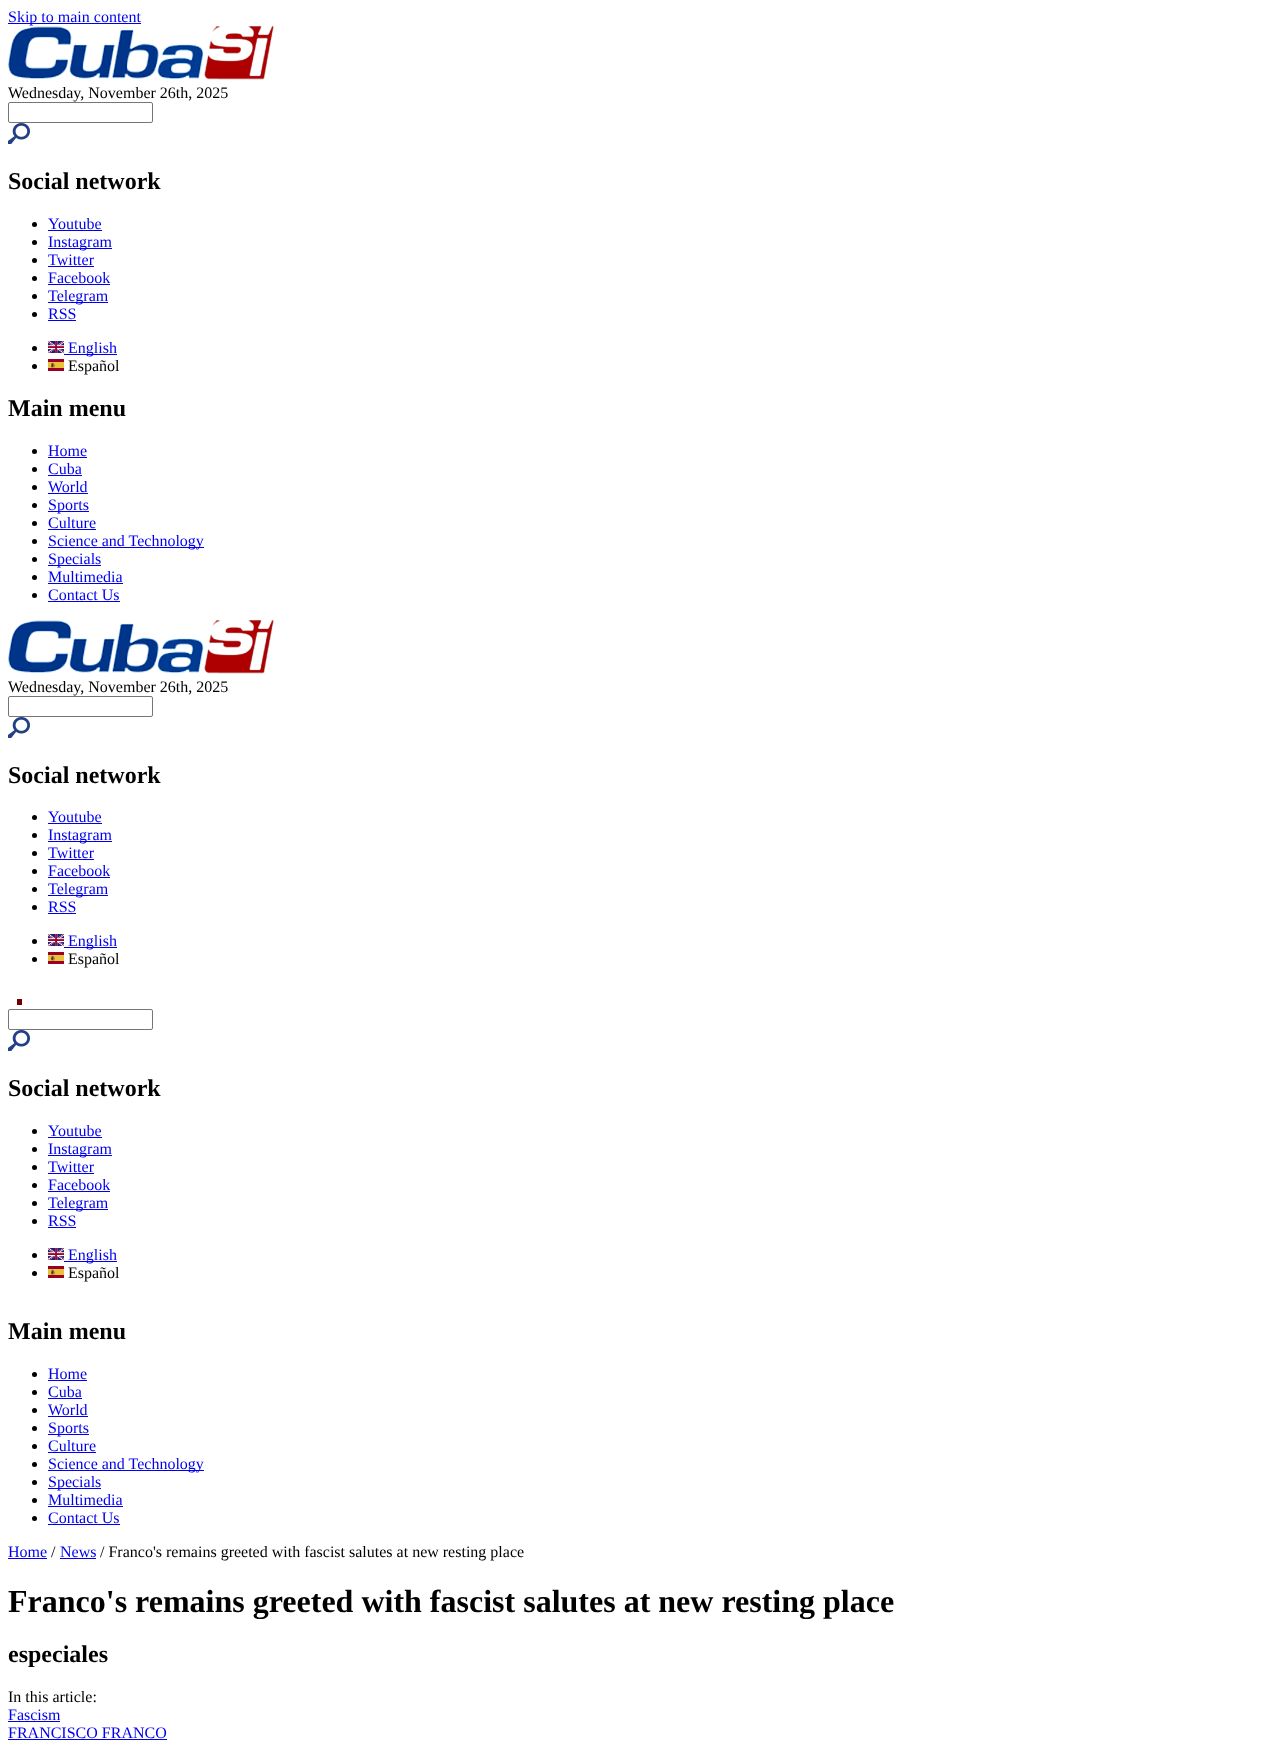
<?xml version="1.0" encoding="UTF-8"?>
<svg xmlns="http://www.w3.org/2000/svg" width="1274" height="1751">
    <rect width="100%" height="100%" fill="#FFFFFF"/>
    <rect x="8" y="23" width="133" height="1" fill="#0000EE"/>
    <text x="8" y="22" font-family="Liberation Serif" font-size="16" fill="#0000EE">Skip to main content</text>
    <image x="8" y="26" width="266" height="54" href="img_01.png"/>
    <text x="8" y="98" font-family="Liberation Serif" font-size="16" fill="#000000">Wednesday, November 26th, 2025</text>
    <rect x="8.5" y="102.5" width="144" height="20" rx="1.5" fill="none" stroke="#767676"/>
    <image x="8" y="123" width="22" height="21" href="img_02.png"/>
    <text x="8" y="189" font-family="Liberation Serif" font-size="24" font-weight="700" fill="#000000">Social network</text>
    <circle cx="34.5" cy="224.5" r="2.5" fill="#000000"/>
    <text x="48" y="229" font-family="Liberation Serif" font-size="16" fill="#0000EE">Youtube</text>
    <rect x="48" y="230" width="54" height="1" fill="#0000EE"/>
    <circle cx="34.5" cy="242.5" r="2.5" fill="#000000"/>
    <rect x="48" y="248" width="64" height="1" fill="#0000EE"/>
    <text x="48" y="247" font-family="Liberation Serif" font-size="16" fill="#0000EE">Instagram</text>
    <circle cx="34.5" cy="260.5" r="2.5" fill="#000000"/>
    <text x="48" y="265" font-family="Liberation Serif" font-size="16" fill="#0000EE">Twitter</text>
    <rect x="48" y="266" width="46" height="1" fill="#0000EE"/>
    <circle cx="34.5" cy="278.5" r="2.5" fill="#000000"/>
    <text x="48" y="283" font-family="Liberation Serif" font-size="16" fill="#0000EE">Facebook</text>
    <rect x="48" y="284" width="62" height="1" fill="#0000EE"/>
    <circle cx="34.5" cy="296.5" r="2.5" fill="#000000"/>
    <rect x="48" y="302" width="60" height="1" fill="#0000EE"/>
    <text x="48" y="301" font-family="Liberation Serif" font-size="16" fill="#0000EE">Telegram</text>
    <circle cx="34.5" cy="314.5" r="2.5" fill="#000000"/>
    <text x="48" y="319" font-family="Liberation Serif" font-size="16" fill="#0000EE">RSS</text>
    <rect x="48" y="320" width="28" height="1" fill="#0000EE"/>
    <circle cx="34.5" cy="348.5" r="2.5" fill="#000000"/>
    <image x="48" y="341" width="16" height="12" href="img_03.png"/>
    <rect x="64" y="354" width="53" height="1" fill="#0000EE"/>
    <text x="68" y="353" font-family="Liberation Serif" font-size="16" fill="#0000EE">English</text>
    <circle cx="34.5" cy="366.5" r="2.5" fill="#000000"/>
    <image x="48" y="359" width="16" height="12" href="img_04.png"/>
    <text x="68" y="371" font-family="Liberation Serif" font-size="16" fill="#000000">Español</text>
    <text x="8" y="416" font-family="Liberation Serif" font-size="24" font-weight="700" fill="#000000">Main menu</text>
    <circle cx="34.5" cy="451.5" r="2.5" fill="#000000"/>
    <text x="48" y="456" font-family="Liberation Serif" font-size="16" fill="#0000EE">Home</text>
    <rect x="48" y="457" width="39" height="1" fill="#0000EE"/>
    <circle cx="34.5" cy="469.5" r="2.5" fill="#000000"/>
    <text x="48" y="474" font-family="Liberation Serif" font-size="16" fill="#0000EE">Cuba</text>
    <rect x="48" y="475" width="34" height="1" fill="#0000EE"/>
    <circle cx="34.5" cy="487.5" r="2.5" fill="#000000"/>
    <text x="48" y="492" font-family="Liberation Serif" font-size="16" fill="#0000EE">World</text>
    <rect x="48" y="493" width="40" height="1" fill="#0000EE"/>
    <circle cx="34.5" cy="505.5" r="2.5" fill="#000000"/>
    <rect x="48" y="511" width="41" height="1" fill="#0000EE"/>
    <text x="48" y="510" font-family="Liberation Serif" font-size="16" fill="#0000EE">Sports</text>
    <circle cx="34.5" cy="523.5" r="2.5" fill="#000000"/>
    <text x="48" y="528" font-family="Liberation Serif" font-size="16" fill="#0000EE">Culture</text>
    <rect x="48" y="529" width="48" height="1" fill="#0000EE"/>
    <circle cx="34.5" cy="541.5" r="2.5" fill="#000000"/>
    <rect x="48" y="547" width="156" height="1" fill="#0000EE"/>
    <text x="48" y="546" font-family="Liberation Serif" font-size="16" fill="#0000EE">Science and Technology</text>
    <circle cx="34.5" cy="559.5" r="2.5" fill="#000000"/>
    <rect x="48" y="565" width="53" height="1" fill="#0000EE"/>
    <text x="48" y="564" font-family="Liberation Serif" font-size="16" fill="#0000EE">Specials</text>
    <circle cx="34.5" cy="577.5" r="2.5" fill="#000000"/>
    <text x="48" y="582" font-family="Liberation Serif" font-size="16" fill="#0000EE">Multimedia</text>
    <rect x="48" y="583" width="75" height="1" fill="#0000EE"/>
    <circle cx="34.5" cy="595.5" r="2.5" fill="#000000"/>
    <text x="48" y="600" font-family="Liberation Serif" font-size="16" fill="#0000EE">Contact Us</text>
    <rect x="48" y="601" width="72" height="1" fill="#0000EE"/>
    <image x="8" y="620" width="266" height="54" href="img_01.png"/>
    <text x="8" y="692" font-family="Liberation Serif" font-size="16" fill="#000000">Wednesday, November 26th, 2025</text>
    <rect x="8.5" y="696.5" width="144" height="20" rx="1.5" fill="none" stroke="#767676"/>
    <image x="8" y="717" width="22" height="21" href="img_02.png"/>
    <text x="8" y="783" font-family="Liberation Serif" font-size="24" font-weight="700" fill="#000000">Social network</text>
    <circle cx="34.5" cy="817.5" r="2.5" fill="#000000"/>
    <text x="48" y="822" font-family="Liberation Serif" font-size="16" fill="#0000EE">Youtube</text>
    <rect x="48" y="823" width="54" height="1" fill="#0000EE"/>
    <circle cx="34.5" cy="835.5" r="2.5" fill="#000000"/>
    <rect x="48" y="841" width="64" height="1" fill="#0000EE"/>
    <text x="48" y="840" font-family="Liberation Serif" font-size="16" fill="#0000EE">Instagram</text>
    <circle cx="34.5" cy="853.5" r="2.5" fill="#000000"/>
    <text x="48" y="858" font-family="Liberation Serif" font-size="16" fill="#0000EE">Twitter</text>
    <rect x="48" y="859" width="46" height="1" fill="#0000EE"/>
    <circle cx="34.5" cy="871.5" r="2.5" fill="#000000"/>
    <text x="48" y="876" font-family="Liberation Serif" font-size="16" fill="#0000EE">Facebook</text>
    <rect x="48" y="877" width="62" height="1" fill="#0000EE"/>
    <circle cx="34.5" cy="889.5" r="2.5" fill="#000000"/>
    <rect x="48" y="895" width="60" height="1" fill="#0000EE"/>
    <text x="48" y="894" font-family="Liberation Serif" font-size="16" fill="#0000EE">Telegram</text>
    <circle cx="34.5" cy="907.5" r="2.5" fill="#000000"/>
    <text x="48" y="912" font-family="Liberation Serif" font-size="16" fill="#0000EE">RSS</text>
    <rect x="48" y="913" width="28" height="1" fill="#0000EE"/>
    <circle cx="34.5" cy="941.5" r="2.5" fill="#000000"/>
    <image x="48" y="934" width="16" height="12" href="img_03.png"/>
    <rect x="64" y="947" width="53" height="1" fill="#0000EE"/>
    <text x="68" y="946" font-family="Liberation Serif" font-size="16" fill="#0000EE">English</text>
    <circle cx="34.5" cy="959.5" r="2.5" fill="#000000"/>
    <image x="48" y="952" width="16" height="12" href="img_04.png"/>
    <text x="68" y="964" font-family="Liberation Serif" font-size="16" fill="#000000">Español</text>
    <rect x="17" y="999" width="5" height="6" fill="#720000"/>
    <rect x="8.5" y="1009.5" width="144" height="20" rx="1.5" fill="none" stroke="#767676"/>
    <image x="8" y="1030" width="22" height="21" href="img_02.png"/>
    <text x="8" y="1096" font-family="Liberation Serif" font-size="24" font-weight="700" fill="#000000">Social network</text>
    <circle cx="34.5" cy="1131.5" r="2.5" fill="#000000"/>
    <text x="48" y="1136" font-family="Liberation Serif" font-size="16" fill="#0000EE">Youtube</text>
    <rect x="48" y="1137" width="54" height="1" fill="#0000EE"/>
    <circle cx="34.5" cy="1149.5" r="2.5" fill="#000000"/>
    <rect x="48" y="1155" width="64" height="1" fill="#0000EE"/>
    <text x="48" y="1154" font-family="Liberation Serif" font-size="16" fill="#0000EE">Instagram</text>
    <circle cx="34.5" cy="1167.5" r="2.5" fill="#000000"/>
    <text x="48" y="1172" font-family="Liberation Serif" font-size="16" fill="#0000EE">Twitter</text>
    <rect x="48" y="1173" width="46" height="1" fill="#0000EE"/>
    <circle cx="34.5" cy="1185.5" r="2.5" fill="#000000"/>
    <text x="48" y="1190" font-family="Liberation Serif" font-size="16" fill="#0000EE">Facebook</text>
    <rect x="48" y="1191" width="62" height="1" fill="#0000EE"/>
    <circle cx="34.5" cy="1203.5" r="2.5" fill="#000000"/>
    <rect x="48" y="1209" width="60" height="1" fill="#0000EE"/>
    <text x="48" y="1208" font-family="Liberation Serif" font-size="16" fill="#0000EE">Telegram</text>
    <circle cx="34.5" cy="1221.5" r="2.5" fill="#000000"/>
    <text x="48" y="1226" font-family="Liberation Serif" font-size="16" fill="#0000EE">RSS</text>
    <rect x="48" y="1227" width="28" height="1" fill="#0000EE"/>
    <circle cx="34.5" cy="1255.5" r="2.5" fill="#000000"/>
    <image x="48" y="1248" width="16" height="12" href="img_03.png"/>
    <rect x="64" y="1261" width="53" height="1" fill="#0000EE"/>
    <text x="68" y="1260" font-family="Liberation Serif" font-size="16" fill="#0000EE">English</text>
    <circle cx="34.5" cy="1273.5" r="2.5" fill="#000000"/>
    <image x="48" y="1266" width="16" height="12" href="img_04.png"/>
    <text x="68" y="1278" font-family="Liberation Serif" font-size="16" fill="#000000">Español</text>
    <text x="8" y="1339" font-family="Liberation Serif" font-size="24" font-weight="700" fill="#000000">Main menu</text>
    <circle cx="34.5" cy="1374.5" r="2.5" fill="#000000"/>
    <text x="48" y="1379" font-family="Liberation Serif" font-size="16" fill="#0000EE">Home</text>
    <rect x="48" y="1380" width="39" height="1" fill="#0000EE"/>
    <circle cx="34.5" cy="1392.5" r="2.5" fill="#000000"/>
    <text x="48" y="1397" font-family="Liberation Serif" font-size="16" fill="#0000EE">Cuba</text>
    <rect x="48" y="1398" width="34" height="1" fill="#0000EE"/>
    <circle cx="34.5" cy="1410.5" r="2.5" fill="#000000"/>
    <text x="48" y="1415" font-family="Liberation Serif" font-size="16" fill="#0000EE">World</text>
    <rect x="48" y="1416" width="40" height="1" fill="#0000EE"/>
    <circle cx="34.5" cy="1428.5" r="2.5" fill="#000000"/>
    <rect x="48" y="1434" width="41" height="1" fill="#0000EE"/>
    <text x="48" y="1433" font-family="Liberation Serif" font-size="16" fill="#0000EE">Sports</text>
    <circle cx="34.5" cy="1446.5" r="2.5" fill="#000000"/>
    <text x="48" y="1451" font-family="Liberation Serif" font-size="16" fill="#0000EE">Culture</text>
    <rect x="48" y="1452" width="48" height="1" fill="#0000EE"/>
    <circle cx="34.5" cy="1464.5" r="2.5" fill="#000000"/>
    <rect x="48" y="1470" width="156" height="1" fill="#0000EE"/>
    <text x="48" y="1469" font-family="Liberation Serif" font-size="16" fill="#0000EE">Science and Technology</text>
    <circle cx="34.5" cy="1482.5" r="2.5" fill="#000000"/>
    <rect x="48" y="1488" width="53" height="1" fill="#0000EE"/>
    <text x="48" y="1487" font-family="Liberation Serif" font-size="16" fill="#0000EE">Specials</text>
    <circle cx="34.5" cy="1500.5" r="2.5" fill="#000000"/>
    <text x="48" y="1505" font-family="Liberation Serif" font-size="16" fill="#0000EE">Multimedia</text>
    <rect x="48" y="1506" width="75" height="1" fill="#0000EE"/>
    <circle cx="34.5" cy="1518.5" r="2.5" fill="#000000"/>
    <text x="48" y="1523" font-family="Liberation Serif" font-size="16" fill="#0000EE">Contact Us</text>
    <rect x="48" y="1524" width="72" height="1" fill="#0000EE"/>
    <text x="8" y="1557" font-family="Liberation Serif" font-size="16" fill="#0000EE">Home</text>
    <rect x="8" y="1558" width="39" height="1" fill="#0000EE"/>
    <text x="51" y="1557" font-family="Liberation Serif" font-size="16" fill="#000000">/</text>
    <text x="60" y="1557" font-family="Liberation Serif" font-size="16" fill="#0000EE">News</text>
    <rect x="60" y="1558" width="36" height="1" fill="#0000EE"/>
    <text x="100" y="1557" font-family="Liberation Serif" font-size="16" fill="#000000">/ Franco's remains greeted with fascist salutes at new resting place</text>
    <text x="8" y="1612" font-family="Liberation Serif" font-size="32" font-weight="700" fill="#000000">Franco's remains greeted with fascist salutes at new resting place</text>
    <text x="8" y="1662" font-family="Liberation Serif" font-size="24" font-weight="700" fill="#000000">especiales</text>
    <text x="8" y="1702" font-family="Liberation Serif" font-size="16" fill="#000000">In this article:</text>
    <text x="8" y="1720" font-family="Liberation Serif" font-size="16" fill="#0000EE">Fascism</text>
    <rect x="8" y="1721" width="52" height="1" fill="#0000EE"/>
    <text x="8" y="1738" font-family="Liberation Serif" font-size="16" fill="#0000EE">FRANCISCO FRANCO</text>
    <rect x="8" y="1739" width="159" height="1" fill="#0000EE"/>
</svg>
